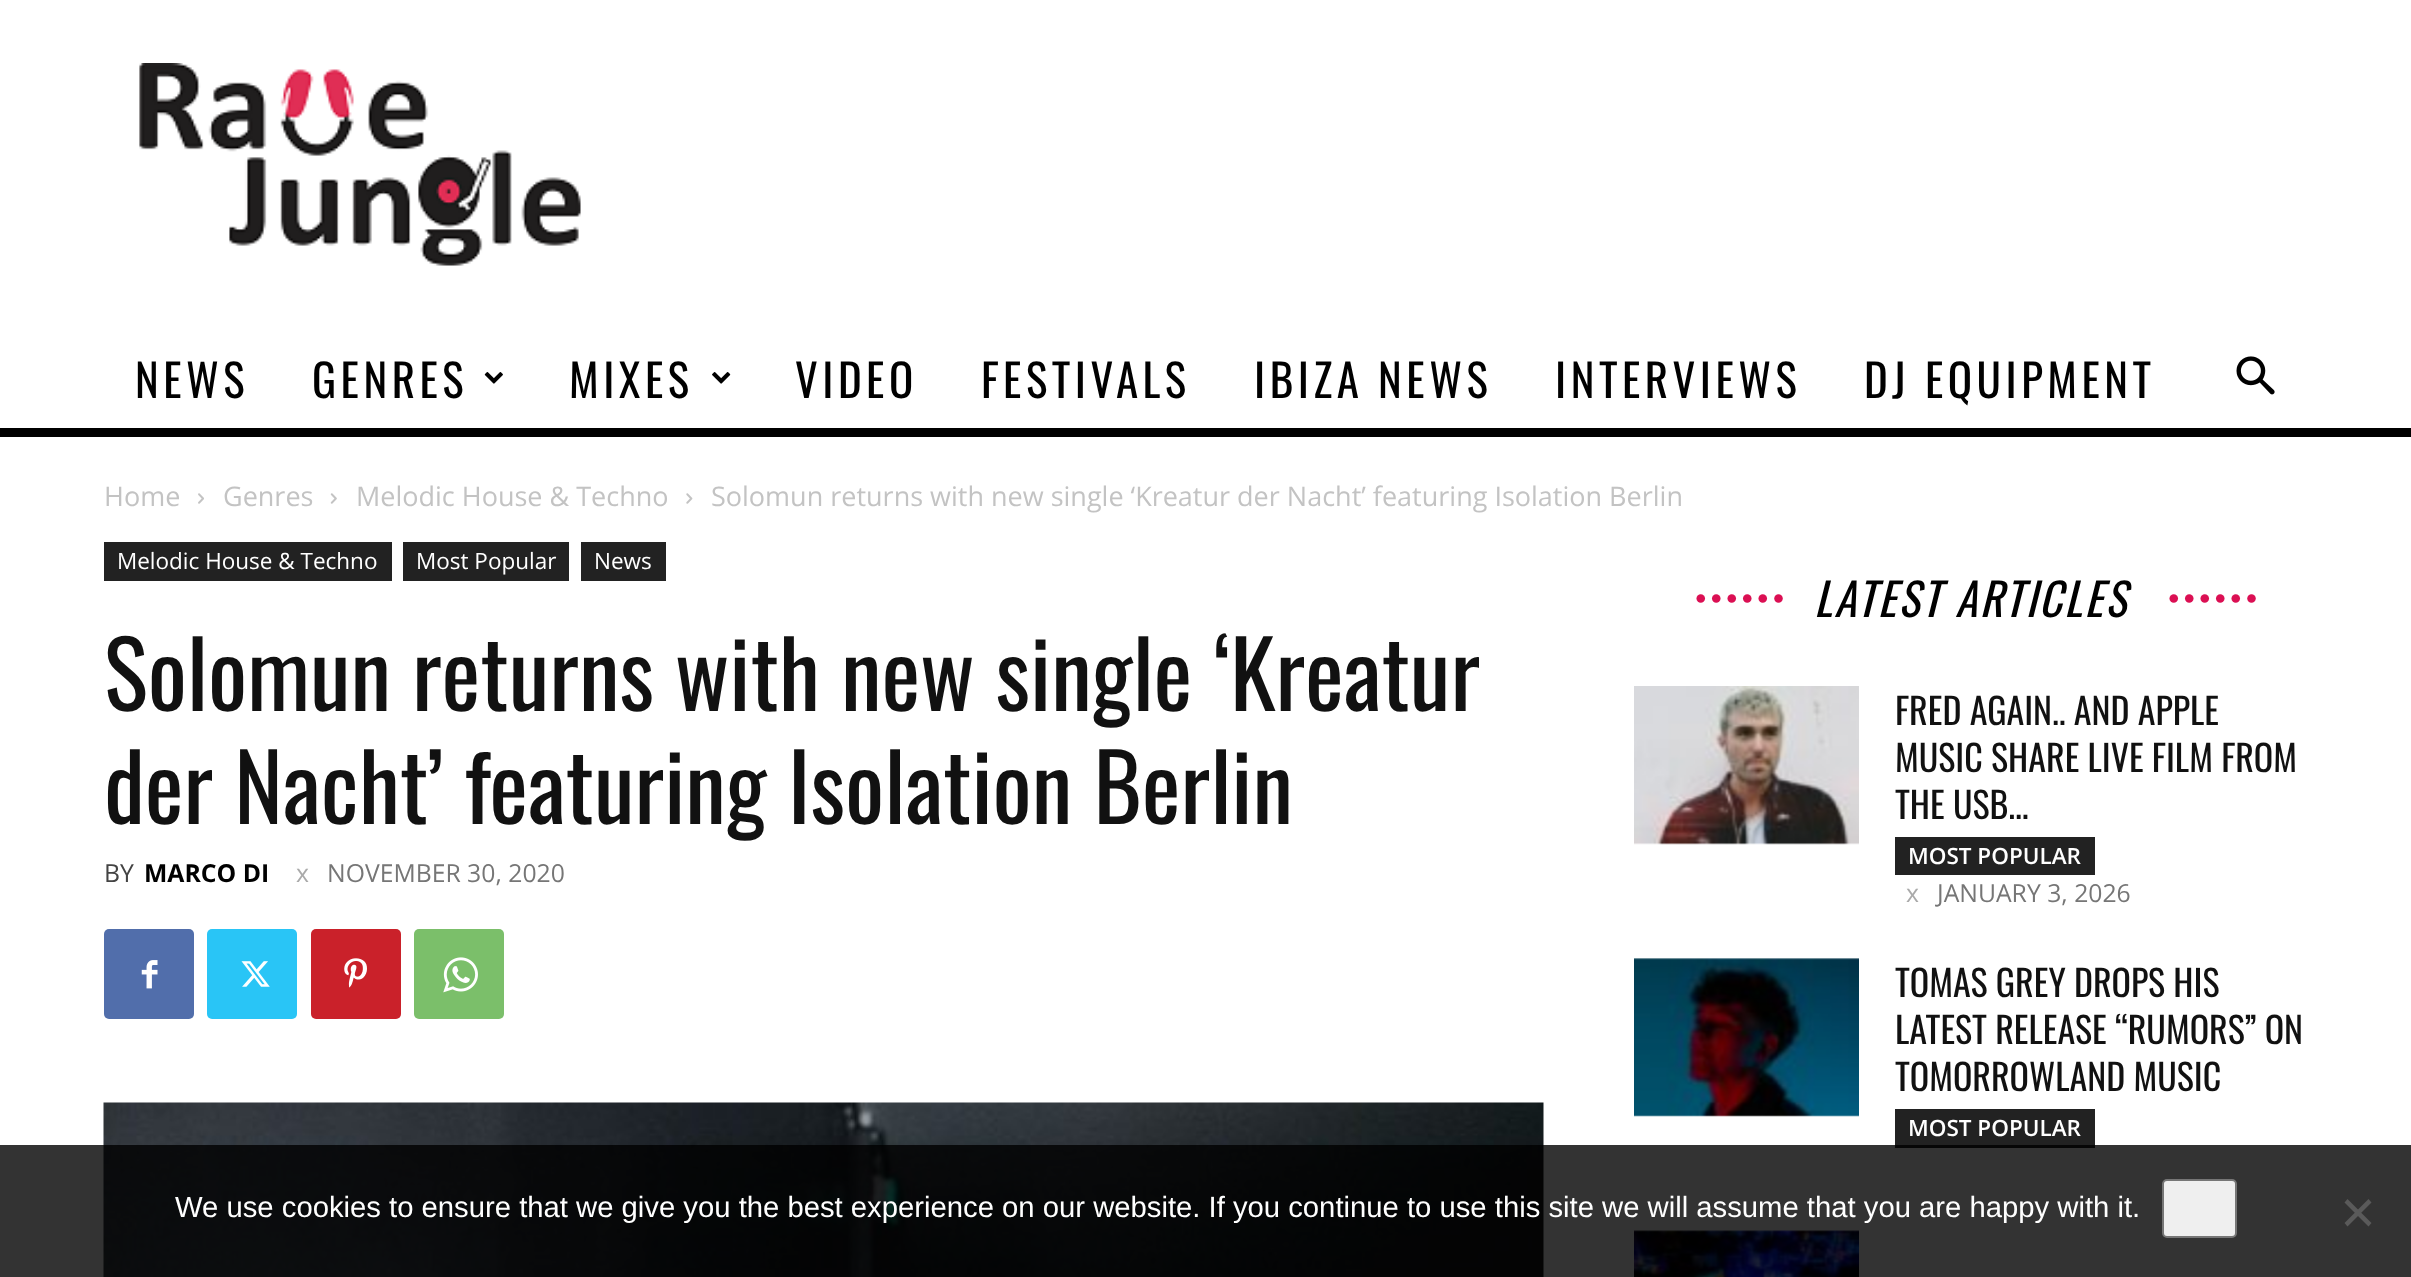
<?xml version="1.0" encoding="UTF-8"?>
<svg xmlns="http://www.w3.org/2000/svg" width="2411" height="1277">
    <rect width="100%" height="100%" fill="#FFFFFF"/>
    <image x="139" y="63" width="442" height="203" href="img_01.png"/>
    <text x="135" y="398" font-family="Oswald" font-size="45" letter-spacing="4.5" fill="#000000">NEWS</text>
    <text x="312" y="398" font-family="Oswald" font-size="45" letter-spacing="4.5" fill="#000000">GENRES</text>
    <image x="484" y="372" width="19" height="12" href="img_02.png"/>
    <text x="569" y="398" font-family="Oswald" font-size="45" letter-spacing="4.5" fill="#000000">MIXES</text>
    <image x="712" y="372" width="19" height="12" href="img_03.png"/>
    <text x="795" y="398" font-family="Oswald" font-size="45" letter-spacing="4.5" fill="#000000">VIDEO</text>
    <text x="981" y="398" font-family="Oswald" font-size="45" letter-spacing="4.5" fill="#000000">FESTIVALS</text>
    <text x="1254" y="398" font-family="Oswald" font-size="45" letter-spacing="4.5" fill="#000000">IBIZA NEWS</text>
    <text x="1555" y="398" font-family="Oswald" font-size="45" letter-spacing="4.5" fill="#000000">INTERVIEWS</text>
    <text x="1864" y="398" font-family="Oswald" font-size="45" letter-spacing="4.5" fill="#000000">DJ EQUIPMENT</text>
    <image x="2236" y="356" width="39" height="39" href="img_04.png"/>
    <rect x="0" y="428" width="2411" height="9" fill="#000000"/>
    <text x="104" y="506" font-family="Open Sans" font-size="27" fill="#C3C3C3">Home</text>
    <image x="198" y="493" width="6" height="11" href="img_05.png"/>
    <text x="223" y="506" font-family="Open Sans" font-size="27" fill="#C3C3C3">Genres</text>
    <image x="330" y="493" width="7" height="11" href="img_06.png"/>
    <text x="356" y="506" font-family="Open Sans" font-size="27" fill="#C3C3C3">Melodic House &amp; Techno</text>
    <image x="686" y="493" width="7" height="11" href="img_07.png"/>
    <text x="711" y="506" font-family="Open Sans" font-size="27" fill="#C3C3C3">Solomun returns with new single ‘Kreatur der Nacht’ featuring Isolation Berlin</text>
    <rect x="104" y="542" width="288" height="39" fill="#222222"/>
    <text x="117" y="569" font-family="Open Sans" font-size="22.5" fill="#FFFFFF">Melodic House &amp; Techno</text>
    <rect x="403" y="542" width="166" height="39" fill="#222222"/>
    <text x="416" y="569" font-family="Open Sans" font-size="22.5" fill="#FFFFFF">Most Popular</text>
    <rect x="581" y="542" width="85" height="39" fill="#222222"/>
    <text x="594" y="569" font-family="Open Sans" font-size="22.5" fill="#FFFFFF">News</text>
    <text font-family="Oswald" font-size="92.25" fill="#111111">
        <tspan x="104" y="711">Solomun returns with new single ‘Kreatur</tspan>
        <tspan x="104" y="824">der Nacht’ featuring Isolation Berlin</tspan>
    </text>
    <text x="104" y="882" font-family="Open Sans" font-size="24.75" fill="#444444">BY</text>
    <text x="144" y="882" font-family="Open Sans" font-size="24.75" font-weight="700" fill="#000000">MARCO DI</text>
    <text x="296" y="882" font-family="Open Sans" font-size="24.75" fill="#AAAAAA">x</text>
    <text x="327" y="882" font-family="Open Sans" font-size="24.75" fill="#767676">NOVEMBER 30, 2020</text>
    <rect x="104" y="929" width="90" height="90" rx="5" fill="#516EAB"/>
    <image x="141" y="960" width="17" height="29" href="img_08.png"/>
    <rect x="207" y="929" width="90" height="90" rx="5" fill="#29C5F6"/>
    <image x="241" y="961" width="29" height="26" href="img_09.png"/>
    <rect x="311" y="929" width="90" height="90" rx="5" fill="#CA212A"/>
    <image x="344" y="958" width="23" height="30" href="img_10.png"/>
    <rect x="414" y="929" width="90" height="90" rx="5" fill="#7BBF6A"/>
    <image x="443" y="957" width="35" height="36" href="img_11.png"/>
    <image x="103" y="1102" width="1441" height="175" href="img_12.png"/>
    <text x="1695" y="609" font-family="Liberation Sans" font-size="31.5" font-style="italic" letter-spacing="4.5" fill="#DB0F53">••••••</text>
    <text x="1814" y="617" font-family="Oswald" font-size="45" font-style="italic" letter-spacing="2.25" fill="#000000">LATEST ARTICLES</text>
    <text x="2168" y="609" font-family="Liberation Sans" font-size="31.5" font-style="italic" letter-spacing="4.5" fill="#DB0F53">••••••</text>
    <image x="1634" y="686" width="225" height="159" href="img_13.png"/>
    <text font-family="Oswald" font-size="36" fill="#111111">
        <tspan x="1895" y="725">FRED AGAIN.. AND APPLE</tspan>
        <tspan x="1895" y="772">MUSIC SHARE LIVE FILM FROM</tspan>
        <tspan x="1895" y="819">THE USB...</tspan>
    </text>
    <rect x="1895" y="837" width="200" height="38" fill="#222222"/>
    <text x="1908" y="864" font-family="Open Sans" font-size="22.5" font-weight="600" fill="#FFFFFF">MOST POPULAR</text>
    <text x="1906" y="902" font-family="Open Sans" font-size="24.75" fill="#AAAAAA">x</text>
    <text x="1937" y="902" font-family="Open Sans" font-size="24.75" fill="#767676">JANUARY 3, 2026</text>
    <image x="1634" y="958" width="225" height="159" href="img_14.png"/>
    <text font-family="Oswald" font-size="36" fill="#111111">
        <tspan x="1895" y="997">TOMAS GREY DROPS HIS</tspan>
        <tspan x="1895" y="1044">LATEST RELEASE “RUMORS” ON</tspan>
        <tspan x="1895" y="1091">TOMORROWLAND MUSIC</tspan>
    </text>
    <rect x="1895" y="1109" width="200" height="39" fill="#222222"/>
    <text x="1908" y="1136" font-family="Open Sans" font-size="22.5" font-weight="600" fill="#FFFFFF">MOST POPULAR</text>
    <image x="1634" y="1230" width="225" height="47" href="img_15.png"/>
    <rect x="0" y="1145" width="2411" height="132" fill="#000000" fill-opacity="0.8"/>
    <text x="175" y="1217" font-family="Liberation Sans" font-size="29.25" fill="#FFFFFF">We use cookies to ensure that we give you the best experience on our website. If you continue to use this site we will assume that you are happy with it.</text>
    <rect x="2163" y="1180" width="73" height="57" rx="4" fill="#EFEFEF" stroke="#767676" stroke-width="2"/>
    <path d="M 2368.5 1199 L 2371.5 1202.5 L 2347.5 1226.5 L 2344.5 1223 Z" fill="#5A5A5A"/>
    <path d="M 2344.5 1202.5 L 2347.5 1199 L 2371.5 1223 L 2368.5 1226.5 Z" fill="#5A5A5A"/>
</svg>
